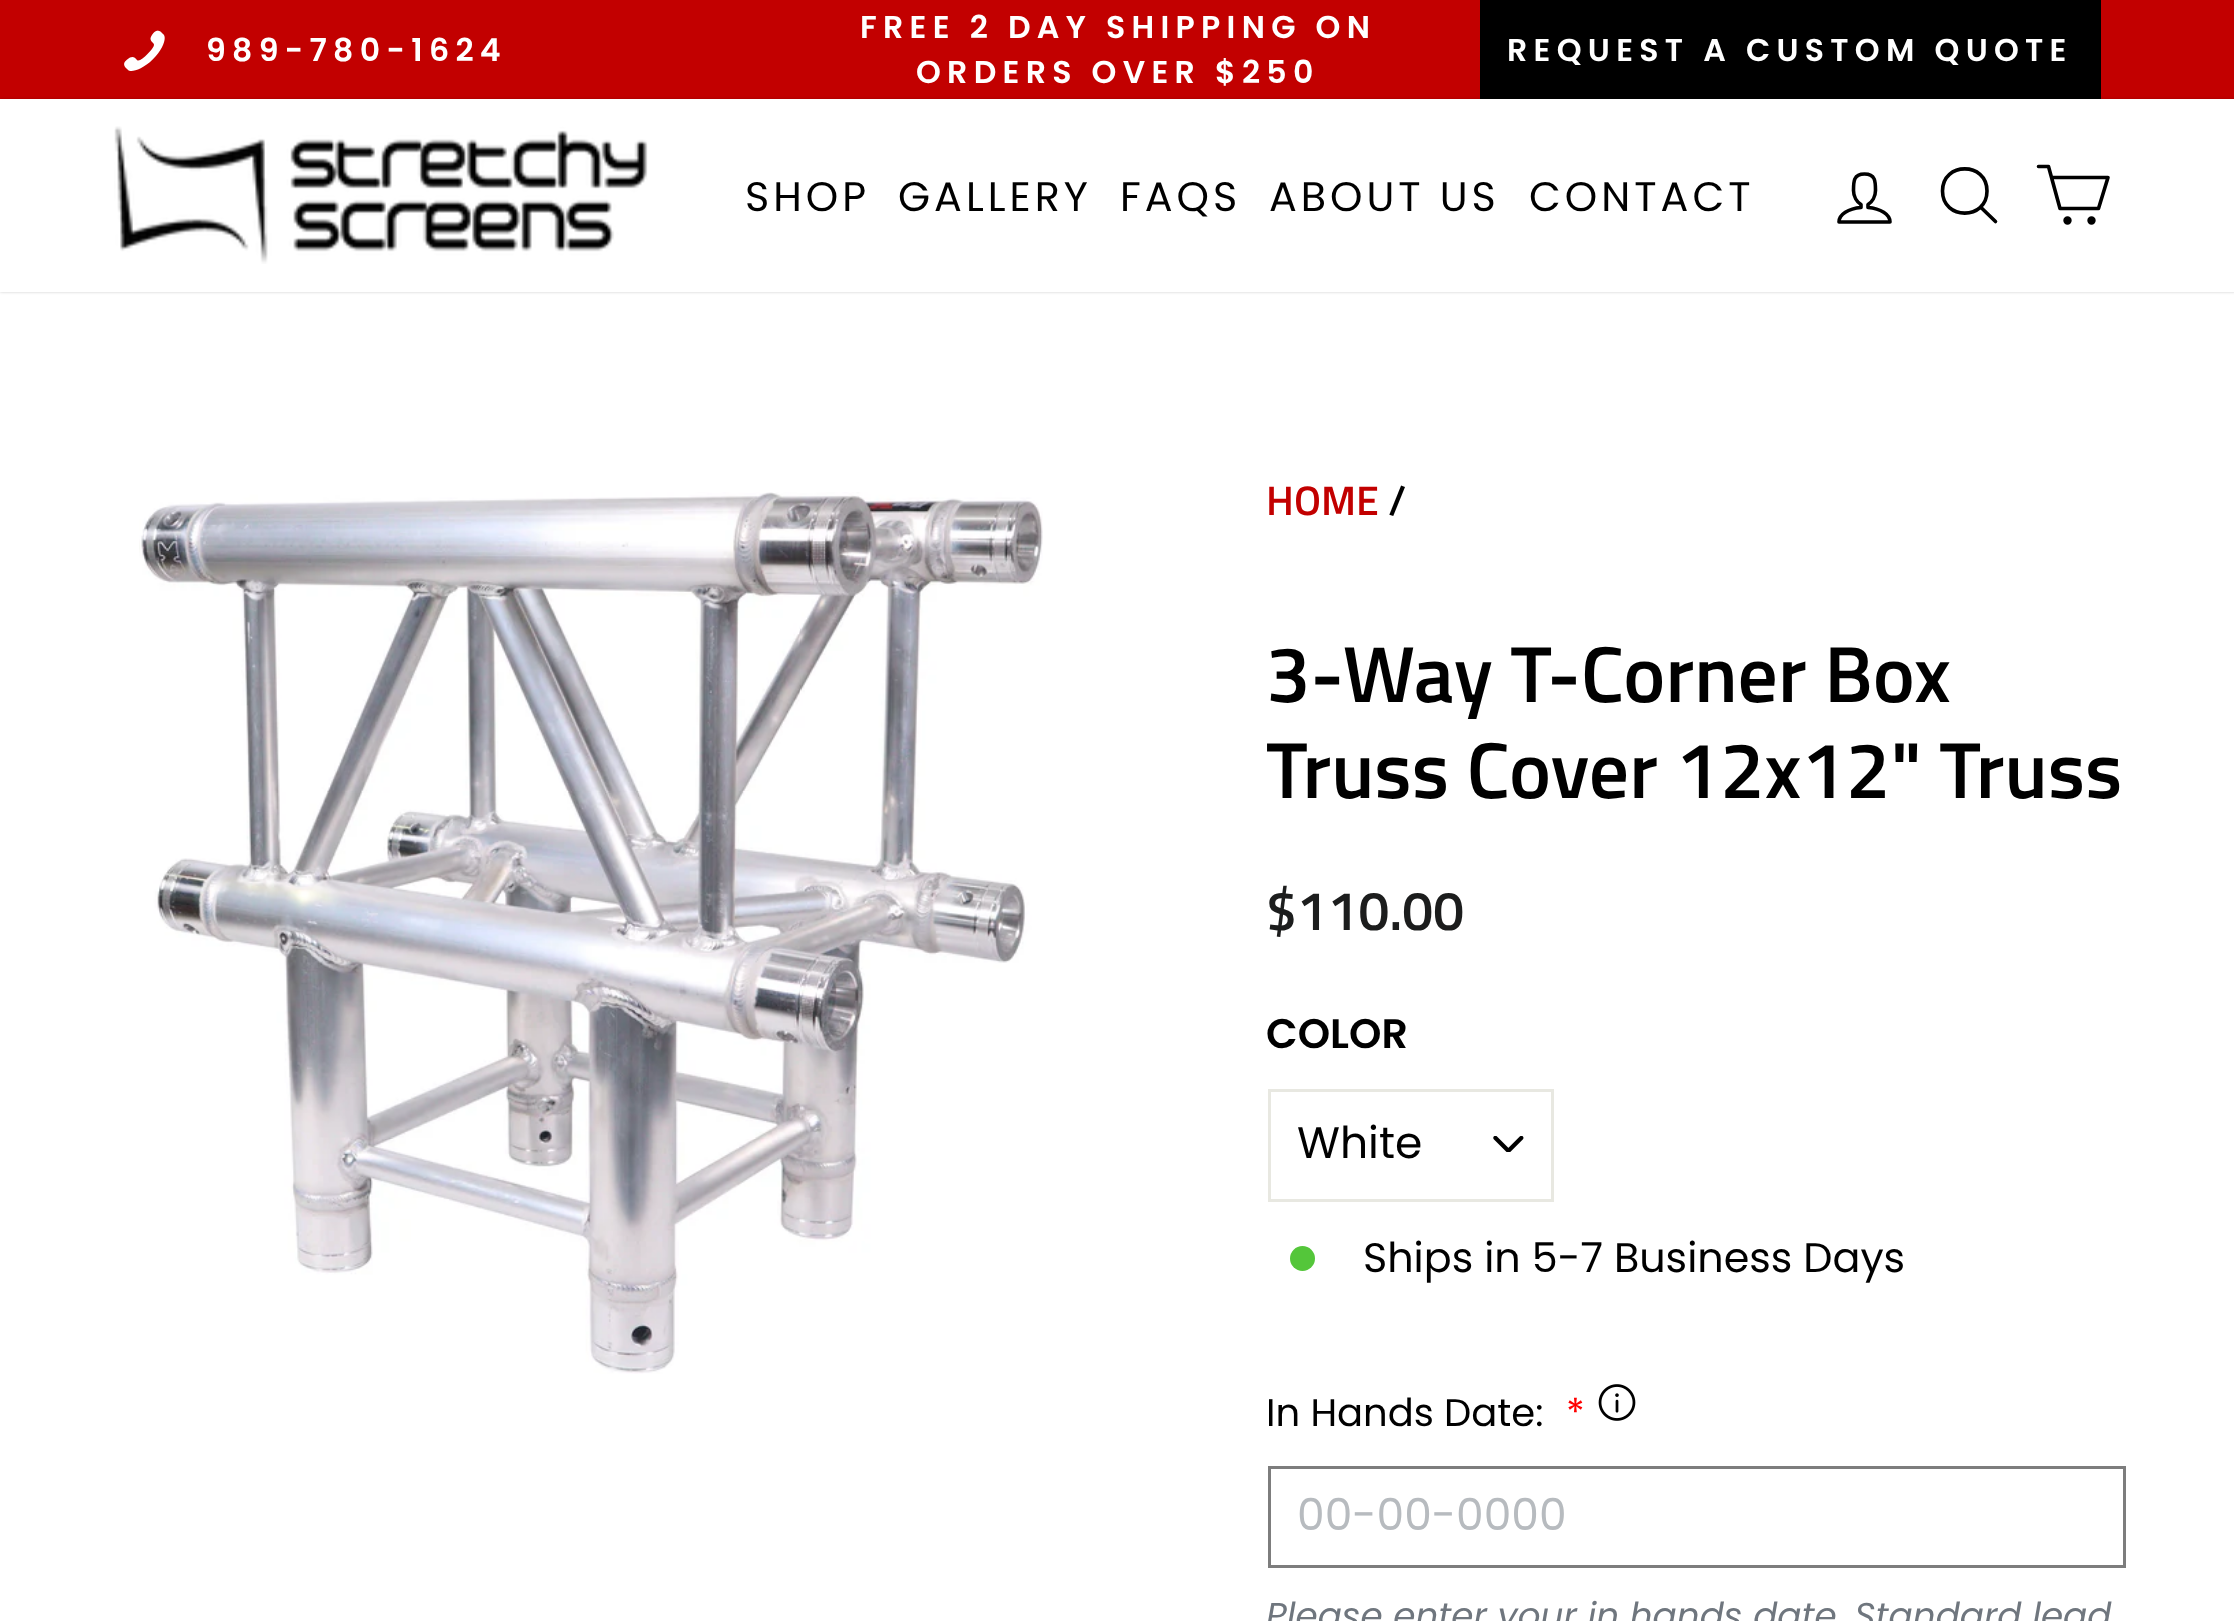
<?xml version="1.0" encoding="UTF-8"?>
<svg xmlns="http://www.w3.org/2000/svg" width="2234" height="1621">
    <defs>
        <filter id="blur1" x="-50%" y="-200%" width="200%" height="500%"><feGaussianBlur stdDeviation="1.5"/></filter>
    </defs>
    <rect width="100%" height="100%" fill="#FFFFFF"/>
    <rect x="0" y="0" width="2234" height="99" fill="#C20000"/>
    <image x="124" y="30" width="41" height="41" href="img_01.png"/>
    <text x="206" y="61" font-family="Poppins" font-size="31.6" font-weight="600" letter-spacing="6.3" fill="#FFFFFF">989-780-1624</text>
    <text x="860" y="38" font-family="Poppins" font-size="31.6" font-weight="600" letter-spacing="6.3" fill="#FFFFFF">FREE 2 DAY SHIPPING ON</text>
    <text x="916" y="83" font-family="Poppins" font-size="31.6" font-weight="600" letter-spacing="6.3" fill="#FFFFFF">ORDERS OVER $250</text>
    <rect x="1480" y="0" width="621" height="99" fill="#000000"/>
    <text x="1507" y="61" font-family="Poppins" font-size="31.6" font-weight="600" letter-spacing="6.3" fill="#FFFFFF">REQUEST A CUSTOM QUOTE</text>
    <rect x="0" y="99" width="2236" height="193" fill="#000000" fill-opacity="0.2" filter="url(#blur1)"/>
    <rect x="0" y="99" width="2234" height="193" fill="#FFFFFF"/>
    <image x="114" y="126" width="534" height="138" href="img_02.png"/>
    <text x="745" y="211" font-family="Poppins" font-size="41.25" letter-spacing="4" fill="#000000">SHOP</text>
    <text x="898" y="211" font-family="Poppins" font-size="41.25" letter-spacing="4" fill="#000000">GALLERY</text>
    <text x="1120" y="211" font-family="Poppins" font-size="41.25" letter-spacing="4" fill="#000000">FAQS</text>
    <text x="1269" y="211" font-family="Poppins" font-size="41.25" letter-spacing="4" fill="#000000">ABOUT US</text>
    <text x="1529" y="211" font-family="Poppins" font-size="41.25" letter-spacing="4" fill="#000000">CONTACT</text>
    <path d="M 1868 207.5 V 204.5 C 1872 202 1875.5 196.5 1875.5 190.5 C 1875.5 181.5 1875.5 174 1864.5 174 C 1853.5 174 1853.5 181.5 1853.5 190.5 C 1853.5 196.5 1857 202 1861 204.5 V 207.5 C 1848.5 208.5 1839 214.5 1839 222 H 1890 C 1890 214.5 1880.5 208.5 1868 207.5 Z" fill="none" stroke="#000000" stroke-width="3.6" stroke-linecap="round" stroke-linejoin="round"/>
    <path d="M 1987 191 C 1987 220.5 1942.5 220.5 1942.5 191 C 1942.5 161.5 1987 161.5 1987 191 Z M 1995.5 221.5 L 1981 207.5" fill="none" stroke="#000000" stroke-width="3.6" stroke-linecap="round" stroke-linejoin="round"/>
    <path d="M 2052 177.5 H 2108 L 2098.5 208.5 H 2060 L 2048.5 166.5 H 2038.5" fill="none" stroke="#000000" stroke-width="3.6" stroke-linecap="round" stroke-linejoin="round"/>
    <circle cx="2067.5" cy="220.5" r="2.4" fill="#000000" stroke="#000000" stroke-width="3.6"/>
    <circle cx="2091.5" cy="220.5" r="2.4" fill="#000000" stroke="#000000" stroke-width="3.6"/>
    <image x="139" y="492" width="904" height="882" href="img_03.png"/>
    <text x="1266" y="515" font-family="Titillium Web" font-size="41.25" font-weight="600" fill="#C20000">HOME</text>
    <text x="1388" y="515" font-family="Titillium Web" font-size="41.25" font-weight="600" fill="#000000">/</text>
    <text font-family="Titillium Web" font-size="79.5" font-weight="600" fill="#000000">
        <tspan x="1266" y="702">3-Way T-Corner Box</tspan>
        <tspan x="1266" y="798">Truss Cover 12x12" Truss</tspan>
    </text>
    <text x="1266" y="930" font-family="Titillium Web" font-size="55" font-weight="600" fill="#1C1D1D">$110.00</text>
    <text x="1266" y="1048" font-family="Poppins" font-size="41.25" font-weight="600" fill="#000000">COLOR</text>
    <image x="1493" y="1136" width="31" height="16" href="img_04.png"/>
    <rect x="1269.5" y="1090.5" width="283" height="110" fill="none" stroke="#E8E8E1" stroke-width="3"/>
    <text x="1297" y="1158" font-family="Poppins" font-size="44" fill="#000000">White</text>
    <circle cx="1302.5" cy="1258.5" r="12.5" fill="#54C63A"/>
    <text x="1363" y="1272" font-family="Poppins" font-size="41.25" fill="#000000">Ships in 5-7 Business Days</text>
    <text x="1266" y="1426" font-family="Poppins" font-size="38.5" fill="#000000">In Hands Date:</text>
    <text x="1566" y="1426" font-family="Poppins" font-size="38.5" fill="#FF0000">*</text>
    <image x="1598" y="1384" width="38" height="37" href="img_05.png"/>
    <rect x="1269.5" y="1467.5" width="855" height="99" fill="none" stroke="#7D7D7D" stroke-width="3"/>
    <text x="1297" y="1530" font-family="Poppins" font-size="44" fill="#B7BBBF">00-00-0000</text>
    <text x="1266" y="1628" font-family="Poppins" font-size="35.75" font-style="italic" fill="#6F767E">Please enter your in hands date. Standard lead</text>
</svg>
